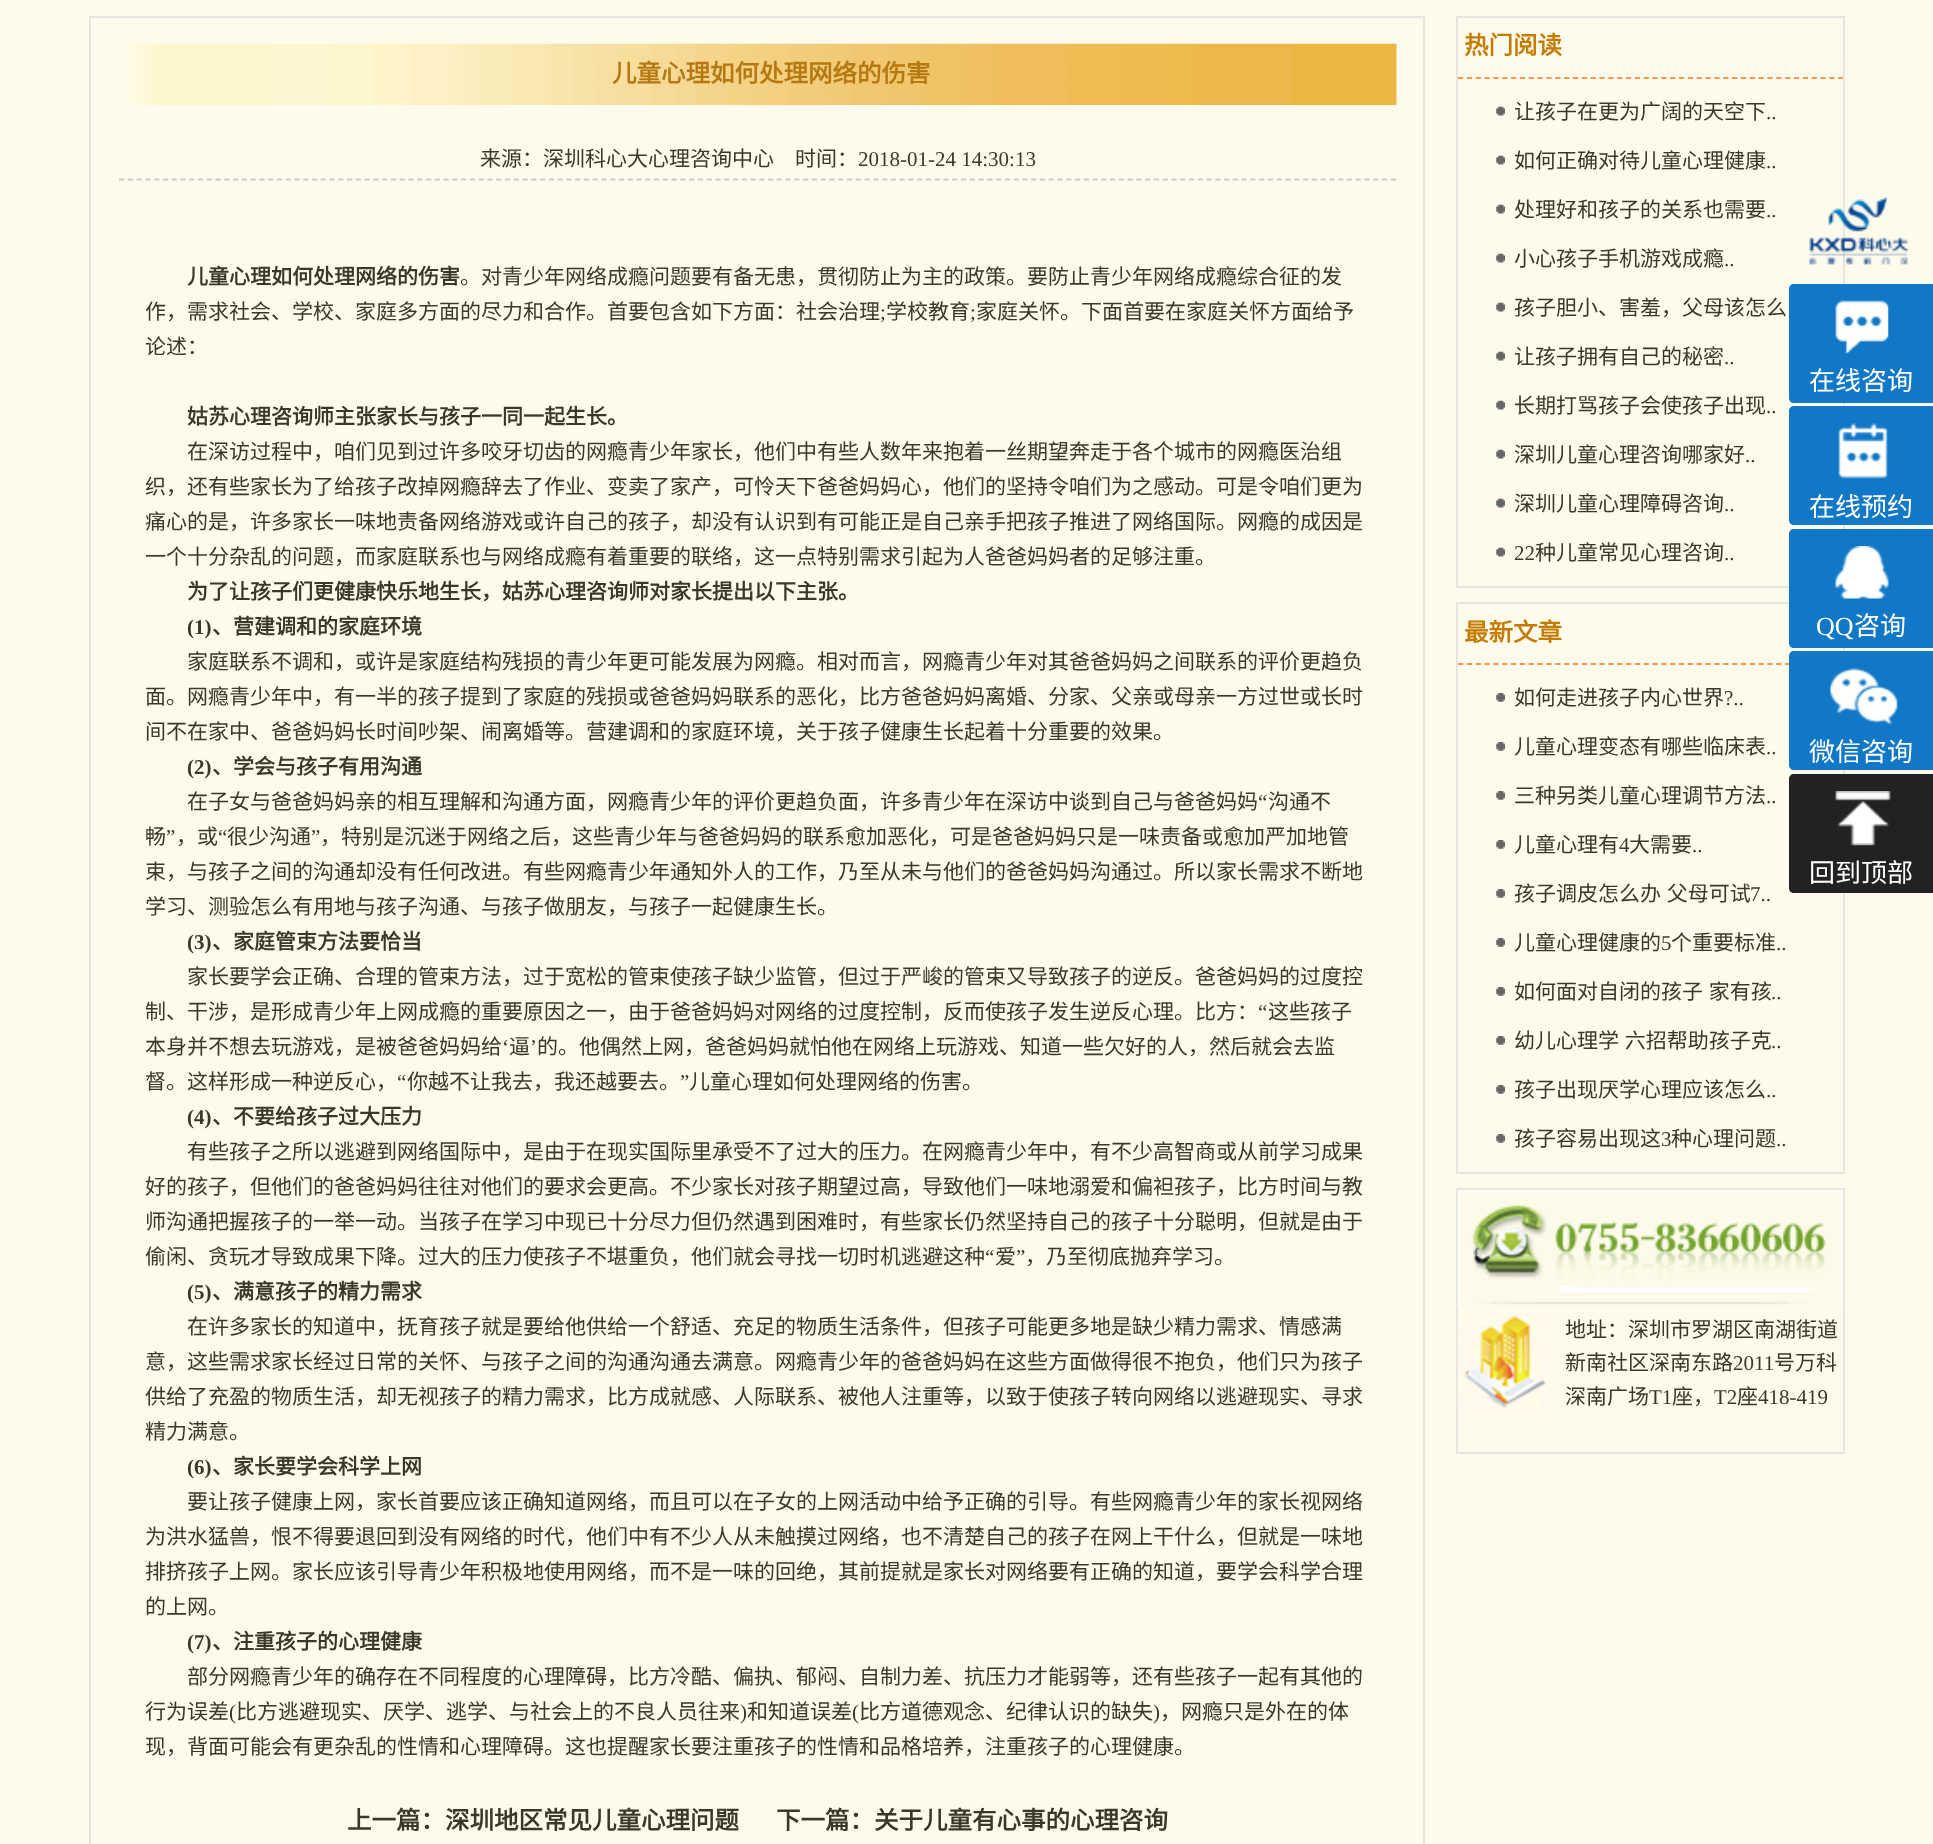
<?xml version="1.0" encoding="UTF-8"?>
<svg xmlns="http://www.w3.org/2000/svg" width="1933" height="1844">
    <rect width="100%" height="100%" fill="#FEFBEC"/>
    <rect x="90" y="17" width="1334" height="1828" fill="none" stroke="#E6E6DE" stroke-width="2"/>
    <image x="128" y="43" width="1269" height="62" href="img_01.png"/>
    <text x="612" y="82" font-family="Noto Sans CJK SC" font-size="24.5" font-weight="700" fill="#B67811">儿童心理如何处理网络的伤害</text>
    <path d="M 119 179.5 H 1396.5" fill="none" stroke="#CACACA" stroke-width="1.8" stroke-dasharray="5.25 3.52"/>
    <text x="480" y="166" font-family="Noto Sans CJK SC" font-size="21" fill="#393927">来源：深圳科心大心理咨询中心</text>
    <text x="795" y="166" font-family="Noto Sans CJK SC" font-size="21" fill="#393927">时间：</text>
    <text x="858" y="166" font-family="Liberation Serif" font-size="21" fill="#393927">2018-01-24 14:30:13</text>
    <text x="187" y="284" font-family="Noto Sans CJK SC" font-size="21" font-weight="700" fill="#393927">儿童心理如何处理网络的伤害</text>
    <text x="460" y="284" font-family="Noto Sans CJK SC" font-size="21" fill="#393927">。对青少年网络成瘾问题要有备无患，贯彻防止为主的政策。要防止青少年网络成瘾综合征的发</text>
    <text x="145" y="319" font-family="Noto Sans CJK SC" font-size="21" fill="#393927">作，需求社会、学校、家庭多方面的尽力和合作。首要包含如下方面：社会治理</text>
    <text x="880" y="319" font-family="Liberation Serif" font-size="21" fill="#393927">;</text>
    <text x="886" y="319" font-family="Noto Sans CJK SC" font-size="21" fill="#393927">学校教育</text>
    <text x="970" y="319" font-family="Liberation Serif" font-size="21" fill="#393927">;</text>
    <text x="976" y="319" font-family="Noto Sans CJK SC" font-size="21" fill="#393927">家庭关怀。下面首要在家庭关怀方面给予</text>
    <text x="145" y="354" font-family="Noto Sans CJK SC" font-size="21" fill="#393927">论述：</text>
    <text x="187" y="424" font-family="Noto Sans CJK SC" font-size="21" font-weight="700" fill="#393927">姑苏心理咨询师主张家长与孩子一同一起生长。</text>
    <text x="187" y="459" font-family="Noto Sans CJK SC" font-size="21" fill="#393927">在深访过程中，咱们见到过许多咬牙切齿的网瘾青少年家长，他们中有些人数年来抱着一丝期望奔走于各个城市的网瘾医治组</text>
    <text font-family="Noto Sans CJK SC" font-size="21" fill="#393927">
        <tspan x="145" y="494">织，还有些家长为了给孩子改掉网瘾辞去了作业、变卖了家产，可怜天下爸爸妈妈心，他们的坚持令咱们为之感动。可是令咱们更为</tspan>
        <tspan x="145" y="529">痛心的是，许多家长一味地责备网络游戏或许自己的孩子，却没有认识到有可能正是自己亲手把孩子推进了网络国际。网瘾的成因是</tspan>
        <tspan x="145" y="564">一个十分杂乱的问题，而家庭联系也与网络成瘾有着重要的联络，这一点特别需求引起为人爸爸妈妈者的足够注重。</tspan>
    </text>
    <text x="187" y="599" font-family="Noto Sans CJK SC" font-size="21" font-weight="700" fill="#393927">为了让孩子们更健康快乐地生长，姑苏心理咨询师对家长提出以下主张。</text>
    <text x="187" y="634" font-family="Liberation Serif" font-size="21" font-weight="700" fill="#393927">(1)</text>
    <text x="212" y="634" font-family="Noto Sans CJK SC" font-size="21" font-weight="700" fill="#393927">、营建调和的家庭环境</text>
    <text x="187" y="669" font-family="Noto Sans CJK SC" font-size="21" fill="#393927">家庭联系不调和，或许是家庭结构残损的青少年更可能发展为网瘾。相对而言，网瘾青少年对其爸爸妈妈之间联系的评价更趋负</text>
    <text font-family="Noto Sans CJK SC" font-size="21" fill="#393927">
        <tspan x="145" y="704">面。网瘾青少年中，有一半的孩子提到了家庭的残损或爸爸妈妈联系的恶化，比方爸爸妈妈离婚、分家、父亲或母亲一方过世或长时</tspan>
        <tspan x="145" y="739">间不在家中、爸爸妈妈长时间吵架、闹离婚等。营建调和的家庭环境，关于孩子健康生长起着十分重要的效果。</tspan>
    </text>
    <text x="187" y="774" font-family="Liberation Serif" font-size="21" font-weight="700" fill="#393927">(2)</text>
    <text x="212" y="774" font-family="Noto Sans CJK SC" font-size="21" font-weight="700" fill="#393927">、学会与孩子有用沟通</text>
    <text x="187" y="809" font-family="Noto Sans CJK SC" font-size="21" fill="#393927">在子女与爸爸妈妈亲的相互理解和沟通方面，网瘾青少年的评价更趋负面，许多青少年在深访中谈到自己与爸爸妈妈</text>
    <text x="1258" y="809" font-family="Liberation Serif" font-size="21" fill="#393927">“</text>
    <text x="1268" y="809" font-family="Noto Sans CJK SC" font-size="21" fill="#393927">沟通不</text>
    <text x="145" y="844" font-family="Noto Sans CJK SC" font-size="21" fill="#393927">畅</text>
    <text x="166" y="844" font-family="Liberation Serif" font-size="21" fill="#393927">”</text>
    <text x="176" y="844" font-family="Noto Sans CJK SC" font-size="21" fill="#393927">，或</text>
    <text x="218" y="844" font-family="Liberation Serif" font-size="21" fill="#393927">“</text>
    <text x="227" y="844" font-family="Noto Sans CJK SC" font-size="21" fill="#393927">很少沟通</text>
    <text x="311" y="844" font-family="Liberation Serif" font-size="21" fill="#393927">”</text>
    <text x="320" y="844" font-family="Noto Sans CJK SC" font-size="21" fill="#393927">，特别是沉迷于网络之后，这些青少年与爸爸妈妈的联系愈加恶化，可是爸爸妈妈只是一味责备或愈加严加地管</text>
    <text font-family="Noto Sans CJK SC" font-size="21" fill="#393927">
        <tspan x="145" y="879">束，与孩子之间的沟通却没有任何改进。有些网瘾青少年通知外人的工作，乃至从未与他们的爸爸妈妈沟通过。所以家长需求不断地</tspan>
        <tspan x="145" y="914">学习、测验怎么有用地与孩子沟通、与孩子做朋友，与孩子一起健康生长。</tspan>
    </text>
    <text x="187" y="949" font-family="Liberation Serif" font-size="21" font-weight="700" fill="#393927">(3)</text>
    <text x="212" y="949" font-family="Noto Sans CJK SC" font-size="21" font-weight="700" fill="#393927">、家庭管束方法要恰当</text>
    <text x="187" y="984" font-family="Noto Sans CJK SC" font-size="21" fill="#393927">家长要学会正确、合理的管束方法，过于宽松的管束使孩子缺少监管，但过于严峻的管束又导致孩子的逆反。爸爸妈妈的过度控</text>
    <text x="145" y="1019" font-family="Noto Sans CJK SC" font-size="21" fill="#393927">制、干涉，是形成青少年上网成瘾的重要原因之一，由于爸爸妈妈对网络的过度控制，反而使孩子发生逆反心理。比方：</text>
    <text x="1258" y="1019" font-family="Liberation Serif" font-size="21" fill="#393927">“</text>
    <text x="1268" y="1019" font-family="Noto Sans CJK SC" font-size="21" fill="#393927">这些孩子</text>
    <text x="145" y="1054" font-family="Noto Sans CJK SC" font-size="21" fill="#393927">本身并不想去玩游戏，是被爸爸妈妈给</text>
    <text x="502" y="1054" font-family="Liberation Serif" font-size="21" fill="#393927">‘</text>
    <text x="509" y="1054" font-family="Noto Sans CJK SC" font-size="21" fill="#393927">逼</text>
    <text x="530" y="1054" font-family="Liberation Serif" font-size="21" fill="#393927">’</text>
    <text x="537" y="1054" font-family="Noto Sans CJK SC" font-size="21" fill="#393927">的。他偶然上网，爸爸妈妈就怕他在网络上玩游戏、知道一些欠好的人，然后就会去监</text>
    <text x="145" y="1089" font-family="Noto Sans CJK SC" font-size="21" fill="#393927">督。这样形成一种逆反心，</text>
    <text x="397" y="1089" font-family="Liberation Serif" font-size="21" fill="#393927">“</text>
    <text x="407" y="1089" font-family="Noto Sans CJK SC" font-size="21" fill="#393927">你越不让我去，我还越要去。</text>
    <text x="680" y="1089" font-family="Liberation Serif" font-size="21" fill="#393927">”</text>
    <text x="689" y="1089" font-family="Noto Sans CJK SC" font-size="21" fill="#393927">儿童心理如何处理网络的伤害。</text>
    <text x="187" y="1124" font-family="Liberation Serif" font-size="21" font-weight="700" fill="#393927">(4)</text>
    <text x="212" y="1124" font-family="Noto Sans CJK SC" font-size="21" font-weight="700" fill="#393927">、不要给孩子过大压力</text>
    <text x="187" y="1159" font-family="Noto Sans CJK SC" font-size="21" fill="#393927">有些孩子之所以逃避到网络国际中，是由于在现实国际里承受不了过大的压力。在网瘾青少年中，有不少高智商或从前学习成果</text>
    <text font-family="Noto Sans CJK SC" font-size="21" fill="#393927">
        <tspan x="145" y="1194">好的孩子，但他们的爸爸妈妈往往对他们的要求会更高。不少家长对孩子期望过高，导致他们一味地溺爱和偏袒孩子，比方时间与教</tspan>
        <tspan x="145" y="1229">师沟通把握孩子的一举一动。当孩子在学习中现已十分尽力但仍然遇到困难时，有些家长仍然坚持自己的孩子十分聪明，但就是由于</tspan>
        <tspan x="145" y="1264">偷闲、贪玩才导致成果下降。过大的压力使孩子不堪重负，他们就会寻找一切时机逃避这种</tspan>
    </text>
    <text x="985" y="1264" font-family="Liberation Serif" font-size="21" fill="#393927">“</text>
    <text x="995" y="1264" font-family="Noto Sans CJK SC" font-size="21" fill="#393927">爱</text>
    <text x="1016" y="1264" font-family="Liberation Serif" font-size="21" fill="#393927">”</text>
    <text x="1025" y="1264" font-family="Noto Sans CJK SC" font-size="21" fill="#393927">，乃至彻底抛弃学习。</text>
    <text x="187" y="1299" font-family="Liberation Serif" font-size="21" font-weight="700" fill="#393927">(5)</text>
    <text x="212" y="1299" font-family="Noto Sans CJK SC" font-size="21" font-weight="700" fill="#393927">、满意孩子的精力需求</text>
    <text x="187" y="1334" font-family="Noto Sans CJK SC" font-size="21" fill="#393927">在许多家长的知道中，抚育孩子就是要给他供给一个舒适、充足的物质生活条件，但孩子可能更多地是缺少精力需求、情感满</text>
    <text font-family="Noto Sans CJK SC" font-size="21" fill="#393927">
        <tspan x="145" y="1369">意，这些需求家长经过日常的关怀、与孩子之间的沟通沟通去满意。网瘾青少年的爸爸妈妈在这些方面做得很不抱负，他们只为孩子</tspan>
        <tspan x="145" y="1404">供给了充盈的物质生活，却无视孩子的精力需求，比方成就感、人际联系、被他人注重等，以致于使孩子转向网络以逃避现实、寻求</tspan>
        <tspan x="145" y="1439">精力满意。</tspan>
    </text>
    <text x="187" y="1474" font-family="Liberation Serif" font-size="21" font-weight="700" fill="#393927">(6)</text>
    <text x="212" y="1474" font-family="Noto Sans CJK SC" font-size="21" font-weight="700" fill="#393927">、家长要学会科学上网</text>
    <text x="187" y="1509" font-family="Noto Sans CJK SC" font-size="21" fill="#393927">要让孩子健康上网，家长首要应该正确知道网络，而且可以在子女的上网活动中给予正确的引导。有些网瘾青少年的家长视网络</text>
    <text font-family="Noto Sans CJK SC" font-size="21" fill="#393927">
        <tspan x="145" y="1544">为洪水猛兽，恨不得要退回到没有网络的时代，他们中有不少人从未触摸过网络，也不清楚自己的孩子在网上干什么，但就是一味地</tspan>
        <tspan x="145" y="1579">排挤孩子上网。家长应该引导青少年积极地使用网络，而不是一味的回绝，其前提就是家长对网络要有正确的知道，要学会科学合理</tspan>
        <tspan x="145" y="1614">的上网。</tspan>
    </text>
    <text x="187" y="1649" font-family="Liberation Serif" font-size="21" font-weight="700" fill="#393927">(7)</text>
    <text x="212" y="1649" font-family="Noto Sans CJK SC" font-size="21" font-weight="700" fill="#393927">、注重孩子的心理健康</text>
    <text x="187" y="1684" font-family="Noto Sans CJK SC" font-size="21" fill="#393927">部分网瘾青少年的确存在不同程度的心理障碍，比方冷酷、偏执、郁闷、自制力差、抗压力才能弱等，还有些孩子一起有其他的</text>
    <text x="145" y="1719" font-family="Noto Sans CJK SC" font-size="21" fill="#393927">行为误差</text>
    <text x="229" y="1719" font-family="Liberation Serif" font-size="21" fill="#393927">(</text>
    <text x="236" y="1719" font-family="Noto Sans CJK SC" font-size="21" fill="#393927">比方逃避现实、厌学、逃学、与社会上的不良人员往来</text>
    <text x="740" y="1719" font-family="Liberation Serif" font-size="21" fill="#393927">)</text>
    <text x="747" y="1719" font-family="Noto Sans CJK SC" font-size="21" fill="#393927">和知道误差</text>
    <text x="852" y="1719" font-family="Liberation Serif" font-size="21" fill="#393927">(</text>
    <text x="859" y="1719" font-family="Noto Sans CJK SC" font-size="21" fill="#393927">比方道德观念、纪律认识的缺失</text>
    <text x="1153" y="1719" font-family="Liberation Serif" font-size="21" fill="#393927">)</text>
    <text x="1160" y="1719" font-family="Noto Sans CJK SC" font-size="21" fill="#393927">，网瘾只是外在的体</text>
    <text x="145" y="1754" font-family="Noto Sans CJK SC" font-size="21" fill="#393927">现，背面可能会有更杂乱的性情和心理障碍。这也提醒家长要注重孩子的性情和品格培养，注重孩子的心理健康。</text>
    <text x="347" y="1829" font-family="Noto Sans CJK SC" font-size="24.5" font-weight="700" fill="#393927">上一篇：深圳地区常见儿童心理问题</text>
    <text x="776" y="1829" font-family="Noto Sans CJK SC" font-size="24.5" font-weight="700" fill="#393927">下一篇：关于儿童有心事的心理咨询</text>
    <rect x="1457" y="17" width="387" height="570" fill="none" stroke="#E6E6DE" stroke-width="2"/>
    <path d="M 1458 78 H 1843" fill="none" stroke="#FB964E" stroke-width="1.8" stroke-dasharray="5.25 3.59"/>
    <text x="1464" y="54" font-family="Noto Sans CJK SC" font-size="24.5" font-weight="700" fill="#C57B00">热门阅读</text>
    <image x="1496" y="106" width="9" height="10" href="img_02.png"/>
    <text x="1514" y="119" font-family="Noto Sans CJK SC" font-size="21" fill="#393927">让孩子在更为广阔的天空下</text>
    <text x="1766" y="119" font-family="Liberation Serif" font-size="21" fill="#393927">..</text>
    <image x="1496" y="155" width="9" height="10" href="img_02.png"/>
    <text x="1514" y="168" font-family="Noto Sans CJK SC" font-size="21" fill="#393927">如何正确对待儿童心理健康</text>
    <text x="1766" y="168" font-family="Liberation Serif" font-size="21" fill="#393927">..</text>
    <image x="1496" y="204" width="9" height="10" href="img_02.png"/>
    <text x="1514" y="217" font-family="Noto Sans CJK SC" font-size="21" fill="#393927">处理好和孩子的关系也需要</text>
    <text x="1766" y="217" font-family="Liberation Serif" font-size="21" fill="#393927">..</text>
    <image x="1496" y="253" width="9" height="10" href="img_02.png"/>
    <text x="1514" y="266" font-family="Noto Sans CJK SC" font-size="21" fill="#393927">小心孩子手机游戏成瘾</text>
    <text x="1724" y="266" font-family="Liberation Serif" font-size="21" fill="#393927">..</text>
    <image x="1496" y="302" width="9" height="10" href="img_02.png"/>
    <text x="1514" y="315" font-family="Noto Sans CJK SC" font-size="21" fill="#393927">孩子胆小、害羞，父母该怎么</text>
    <image x="1496" y="351" width="9" height="10" href="img_02.png"/>
    <text x="1514" y="364" font-family="Noto Sans CJK SC" font-size="21" fill="#393927">让孩子拥有自己的秘密</text>
    <text x="1724" y="364" font-family="Liberation Serif" font-size="21" fill="#393927">..</text>
    <image x="1496" y="400" width="9" height="10" href="img_02.png"/>
    <text x="1514" y="413" font-family="Noto Sans CJK SC" font-size="21" fill="#393927">长期打骂孩子会使孩子出现</text>
    <text x="1766" y="413" font-family="Liberation Serif" font-size="21" fill="#393927">..</text>
    <image x="1496" y="449" width="9" height="10" href="img_02.png"/>
    <text x="1514" y="462" font-family="Noto Sans CJK SC" font-size="21" fill="#393927">深圳儿童心理咨询哪家好</text>
    <text x="1745" y="462" font-family="Liberation Serif" font-size="21" fill="#393927">..</text>
    <image x="1496" y="498" width="9" height="10" href="img_02.png"/>
    <text x="1514" y="511" font-family="Noto Sans CJK SC" font-size="21" fill="#393927">深圳儿童心理障碍咨询</text>
    <text x="1724" y="511" font-family="Liberation Serif" font-size="21" fill="#393927">..</text>
    <image x="1496" y="547" width="9" height="10" href="img_02.png"/>
    <text x="1514" y="560" font-family="Liberation Serif" font-size="21" fill="#393927">22</text>
    <text x="1535" y="560" font-family="Noto Sans CJK SC" font-size="21" fill="#393927">种儿童常见心理咨询</text>
    <text x="1724" y="560" font-family="Liberation Serif" font-size="21" fill="#393927">..</text>
    <rect x="1457" y="603" width="387" height="570" fill="none" stroke="#E6E6DE" stroke-width="2"/>
    <path d="M 1458 664 H 1843" fill="none" stroke="#FB964E" stroke-width="1.8" stroke-dasharray="5.25 3.59"/>
    <text x="1464" y="641" font-family="Noto Sans CJK SC" font-size="24.5" font-weight="700" fill="#C57B00">最新文章</text>
    <image x="1496" y="693" width="9" height="9" href="img_03.png"/>
    <text x="1514" y="705" font-family="Noto Sans CJK SC" font-size="21" fill="#393927">如何走进孩子内心世界</text>
    <text x="1724" y="705" font-family="Liberation Serif" font-size="21" fill="#393927">?..</text>
    <image x="1496" y="742" width="9" height="9" href="img_03.png"/>
    <text x="1514" y="754" font-family="Noto Sans CJK SC" font-size="21" fill="#393927">儿童心理变态有哪些临床表</text>
    <text x="1766" y="754" font-family="Liberation Serif" font-size="21" fill="#393927">..</text>
    <image x="1496" y="791" width="9" height="9" href="img_03.png"/>
    <text x="1514" y="803" font-family="Noto Sans CJK SC" font-size="21" fill="#393927">三种另类儿童心理调节方法</text>
    <text x="1766" y="803" font-family="Liberation Serif" font-size="21" fill="#393927">..</text>
    <image x="1496" y="840" width="9" height="9" href="img_03.png"/>
    <text x="1514" y="852" font-family="Noto Sans CJK SC" font-size="21" fill="#393927">儿童心理有</text>
    <text x="1619" y="852" font-family="Liberation Serif" font-size="21" fill="#393927">4</text>
    <text x="1629" y="852" font-family="Noto Sans CJK SC" font-size="21" fill="#393927">大需要</text>
    <text x="1692" y="852" font-family="Liberation Serif" font-size="21" fill="#393927">..</text>
    <image x="1496" y="889" width="9" height="9" href="img_03.png"/>
    <text x="1514" y="901" word-spacing="1" font-family="Noto Sans CJK SC" font-size="21" fill="#393927">孩子调皮怎么办 父母可试</text>
    <text x="1750" y="901" font-family="Liberation Serif" font-size="21" fill="#393927">7..</text>
    <image x="1496" y="938" width="9" height="9" href="img_03.png"/>
    <text x="1514" y="950" font-family="Noto Sans CJK SC" font-size="21" fill="#393927">儿童心理健康的</text>
    <text x="1661" y="950" font-family="Liberation Serif" font-size="21" fill="#393927">5</text>
    <text x="1671" y="950" font-family="Noto Sans CJK SC" font-size="21" fill="#393927">个重要标准</text>
    <text x="1776" y="950" font-family="Liberation Serif" font-size="21" fill="#393927">..</text>
    <image x="1496" y="987" width="9" height="9" href="img_03.png"/>
    <text x="1514" y="999" word-spacing="1" font-family="Noto Sans CJK SC" font-size="21" fill="#393927">如何面对自闭的孩子 家有孩</text>
    <text x="1771" y="999" font-family="Liberation Serif" font-size="21" fill="#393927">..</text>
    <image x="1496" y="1036" width="9" height="9" href="img_03.png"/>
    <text x="1514" y="1048" word-spacing="1" font-family="Noto Sans CJK SC" font-size="21" fill="#393927">幼儿心理学 六招帮助孩子克</text>
    <text x="1771" y="1048" font-family="Liberation Serif" font-size="21" fill="#393927">..</text>
    <image x="1496" y="1085" width="9" height="9" href="img_03.png"/>
    <text x="1514" y="1097" font-family="Noto Sans CJK SC" font-size="21" fill="#393927">孩子出现厌学心理应该怎么</text>
    <text x="1766" y="1097" font-family="Liberation Serif" font-size="21" fill="#393927">..</text>
    <image x="1496" y="1134" width="9" height="9" href="img_03.png"/>
    <text x="1514" y="1146" font-family="Noto Sans CJK SC" font-size="21" fill="#393927">孩子容易出现这</text>
    <text x="1661" y="1146" font-family="Liberation Serif" font-size="21" fill="#393927">3</text>
    <text x="1671" y="1146" font-family="Noto Sans CJK SC" font-size="21" fill="#393927">种心理问题</text>
    <text x="1776" y="1146" font-family="Liberation Serif" font-size="21" fill="#393927">..</text>
    <rect x="1457" y="1189" width="387" height="264" fill="none" stroke="#E6E6DE" stroke-width="2"/>
    <image x="1457" y="1190" width="386" height="118" href="img_04.png"/>
    <image x="1457" y="1314" width="89" height="98" href="img_05.png"/>
    <text font-family="Noto Sans CJK SC" font-size="21" fill="#393927">
        <tspan x="1565" y="1337">地址：深圳市罗湖区南湖街道</tspan>
        <tspan x="1565" y="1370">新南社区深南东路</tspan>
    </text>
    <text x="1733" y="1370" font-family="Liberation Serif" font-size="21" fill="#393927">2011</text>
    <text x="1774" y="1370" font-family="Noto Sans CJK SC" font-size="21" fill="#393927">号万科</text>
    <text x="1565" y="1404" font-family="Noto Sans CJK SC" font-size="21" fill="#393927">深南广场</text>
    <text x="1649" y="1404" font-family="Liberation Serif" font-size="21" fill="#393927">T1</text>
    <text x="1672" y="1404" font-family="Noto Sans CJK SC" font-size="21" fill="#393927">座，</text>
    <text x="1714" y="1404" font-family="Liberation Serif" font-size="21" fill="#393927">T2</text>
    <text x="1737" y="1404" font-family="Noto Sans CJK SC" font-size="21" fill="#393927">座</text>
    <text x="1758" y="1404" font-family="Liberation Serif" font-size="21" fill="#393927">418-419</text>
    <image x="1809" y="197" width="99" height="68" href="img_06.png"/>
    <path d="M 1794 284 H 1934 V 403 H 1794 C 1791 403 1789 401 1789 398 V 289 C 1789 286 1791 284 1794 284 Z" fill="#1178C7"/>
    <image x="1835" y="300" width="54" height="54" href="img_07.png"/>
    <text x="1809" y="390" font-family="Noto Sans CJK SC" font-size="26" fill="#FFFFFF">在线咨询</text>
    <path d="M 1794 406 H 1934 V 525 H 1794 C 1791 525 1789 523 1789 520 V 411 C 1789 408 1791 406 1794 406 Z" fill="#1178C7"/>
    <image x="1838" y="423" width="50" height="56" href="img_08.png"/>
    <text x="1809" y="516" font-family="Noto Sans CJK SC" font-size="26" fill="#FFFFFF">在线预约</text>
    <path d="M 1794 529 H 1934 V 648 H 1794 C 1791 648 1789 646 1789 643 V 534 C 1789 531 1791 529 1794 529 Z" fill="#1178C7"/>
    <image x="1835" y="546" width="54" height="53" href="img_09.png"/>
    <text x="1816" y="635" font-family="Liberation Serif" font-size="26" fill="#FFFFFF">QQ</text>
    <text x="1854" y="635" font-family="Noto Sans CJK SC" font-size="26" fill="#FFFFFF">咨询</text>
    <path d="M 1794 651 H 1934 V 770 H 1794 C 1791 770 1789 768 1789 765 V 656 C 1789 653 1791 651 1794 651 Z" fill="#1178C7"/>
    <image x="1830" y="668" width="68" height="57" href="img_10.png"/>
    <text x="1809" y="761" font-family="Noto Sans CJK SC" font-size="26" fill="#FFFFFF">微信咨询</text>
    <path d="M 1794 774 H 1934 V 893 H 1794 C 1791 893 1789 891 1789 888 V 779 C 1789 776 1791 774 1794 774 Z" fill="#222222"/>
    <image x="1835" y="791" width="56" height="55" href="img_11.png"/>
    <text x="1809" y="882" font-family="Noto Sans CJK SC" font-size="26" fill="#FFFFFF">回到顶部</text>
</svg>
